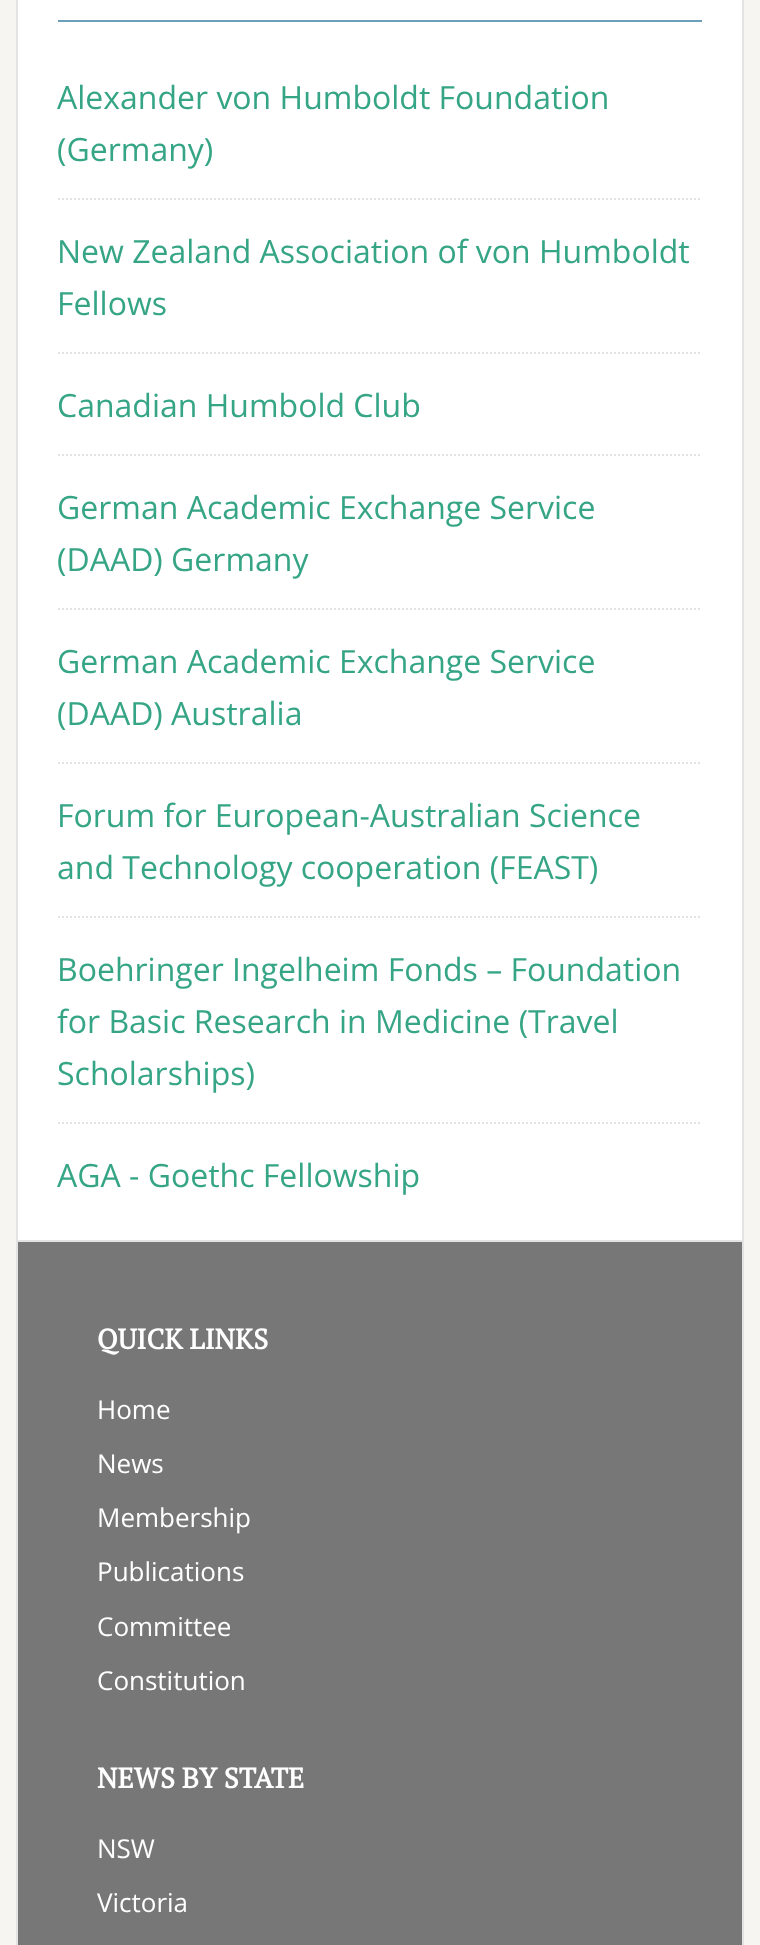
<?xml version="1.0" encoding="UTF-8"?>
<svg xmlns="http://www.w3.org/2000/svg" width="760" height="1945">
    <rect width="100%" height="100%" fill="#F6F5F2"/>
    <rect x="18" y="0" width="724" height="1240" fill="#FFFFFF"/>
    <rect x="17" y="-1" width="726" height="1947" fill="none" stroke="#E3E3E3" stroke-width="2"/>
    <rect x="18" y="1240" width="724" height="2" fill="#E3E3E3"/>
    <rect x="58" y="20" width="644" height="2" fill="#6B9FBA"/>
    <path d="M 58 199 H 702" fill="none" stroke="#E3E3E3" stroke-width="2" stroke-dasharray="2 2"/>
    <text font-family="Open Sans" font-size="32" fill="#36A586">
        <tspan x="57" y="109">Alexander von Humboldt Foundation</tspan>
        <tspan x="57" y="161">(Germany)</tspan>
    </text>
    <path d="M 58 353 H 702" fill="none" stroke="#E3E3E3" stroke-width="2" stroke-dasharray="2 2"/>
    <text font-family="Open Sans" font-size="32" fill="#36A586">
        <tspan x="57" y="263">New Zealand Association of von Humboldt</tspan>
        <tspan x="57" y="315">Fellows</tspan>
    </text>
    <path d="M 58 455 H 702" fill="none" stroke="#E3E3E3" stroke-width="2" stroke-dasharray="2 2"/>
    <text x="57" y="417" font-family="Open Sans" font-size="32" fill="#36A586">Canadian Humbold Club</text>
    <path d="M 58 609 H 702" fill="none" stroke="#E3E3E3" stroke-width="2" stroke-dasharray="2 2"/>
    <text font-family="Open Sans" font-size="32" fill="#36A586">
        <tspan x="57" y="519">German Academic Exchange Service</tspan>
        <tspan x="57" y="571">(DAAD) Germany</tspan>
    </text>
    <path d="M 58 763 H 702" fill="none" stroke="#E3E3E3" stroke-width="2" stroke-dasharray="2 2"/>
    <text font-family="Open Sans" font-size="32" fill="#36A586">
        <tspan x="57" y="673">German Academic Exchange Service</tspan>
        <tspan x="57" y="725">(DAAD) Australia</tspan>
    </text>
    <path d="M 58 917 H 702" fill="none" stroke="#E3E3E3" stroke-width="2" stroke-dasharray="2 2"/>
    <text font-family="Open Sans" font-size="32" fill="#36A586">
        <tspan x="57" y="827">Forum for European-Australian Science</tspan>
        <tspan x="57" y="879">and Technology cooperation (FEAST)</tspan>
    </text>
    <path d="M 58 1123 H 702" fill="none" stroke="#E3E3E3" stroke-width="2" stroke-dasharray="2 2"/>
    <text font-family="Open Sans" font-size="32" fill="#36A586">
        <tspan x="57" y="981">Boehringer Ingelheim Fonds – Foundation</tspan>
        <tspan x="57" y="1033">for Basic Research in Medicine (Travel</tspan>
        <tspan x="57" y="1085">Scholarships)</tspan>
    </text>
    <text x="57" y="1187" font-family="Open Sans" font-size="32" fill="#36A586">AGA - Goethc Fellowship</text>
    <rect x="18" y="1242" width="724" height="703" fill="#777777"/>
    <text x="97" y="1349" font-family="PT Serif" font-size="28" font-weight="700" fill="#FFFFFF">QUICK LINKS</text>
    <text x="97" y="1419" font-family="Open Sans" font-size="26" fill="#FFFFFF">Home</text>
    <text x="97" y="1473" font-family="Open Sans" font-size="26" fill="#FFFFFF">News</text>
    <text x="97" y="1527" font-family="Open Sans" font-size="26" fill="#FFFFFF">Membership</text>
    <text x="97" y="1581" font-family="Open Sans" font-size="26" fill="#FFFFFF">Publications</text>
    <text x="97" y="1636" font-family="Open Sans" font-size="26" fill="#FFFFFF">Committee</text>
    <text x="97" y="1690" font-family="Open Sans" font-size="26" fill="#FFFFFF">Constitution</text>
    <text x="97" y="1788" font-family="PT Serif" font-size="28" font-weight="700" fill="#FFFFFF">NEWS BY STATE</text>
    <text x="97" y="1858" font-family="Open Sans" font-size="26" fill="#FFFFFF">NSW</text>
    <text x="97" y="1912" font-family="Open Sans" font-size="26" fill="#FFFFFF">Victoria</text>
</svg>
